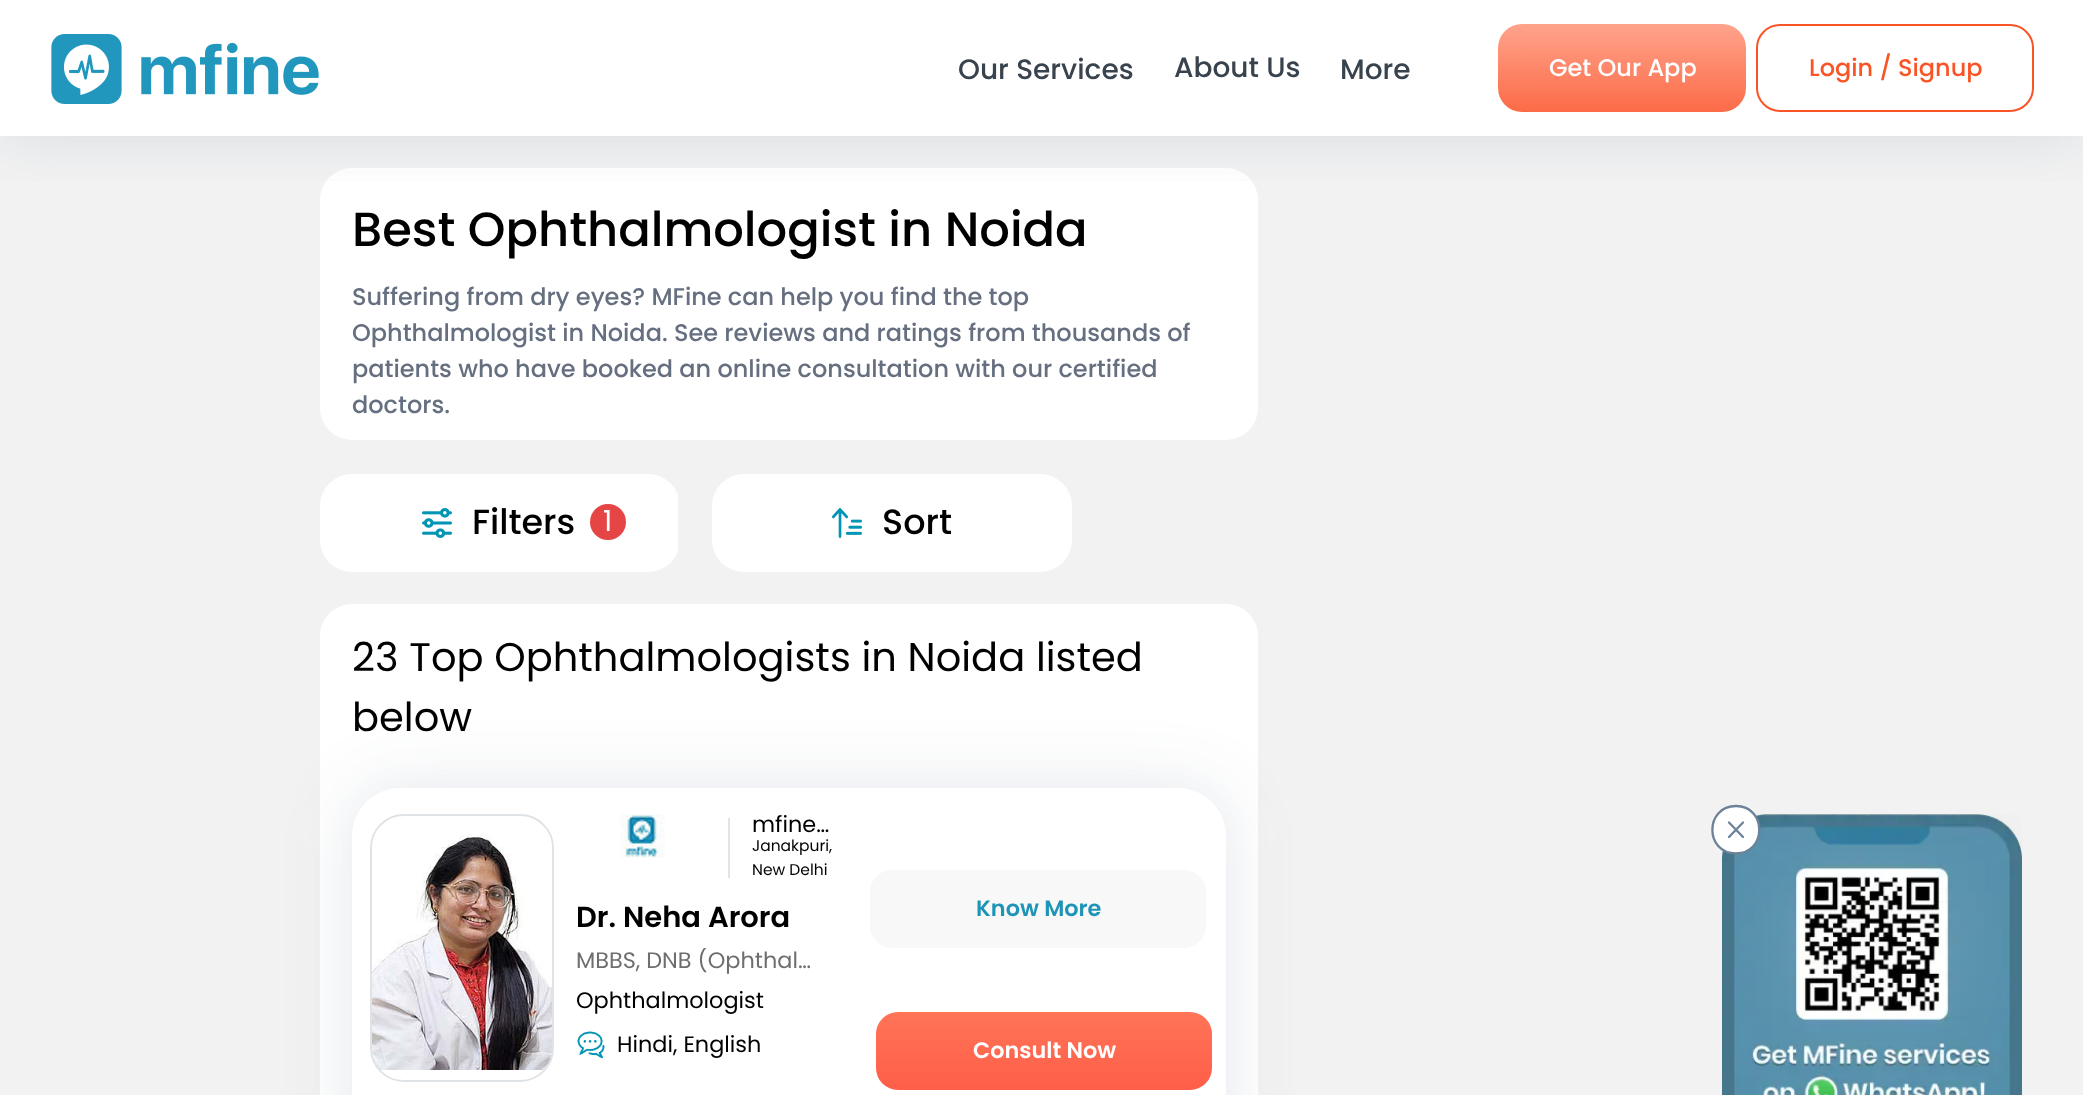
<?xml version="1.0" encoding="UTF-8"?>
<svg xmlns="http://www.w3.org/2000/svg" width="2083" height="1095">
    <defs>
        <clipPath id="clip1"><rect x="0" y="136" width="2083" height="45"/></clipPath>
        <filter id="blur1" x="-50%" y="-200%" width="200%" height="500%"><feGaussianBlur stdDeviation="32"/></filter>
        <linearGradient id="g1" gradientUnits="userSpaceOnUse" x1="1622" y1="24" x2="1622" y2="112"><stop offset="0" stop-color="#FFA38C"/><stop offset="1" stop-color="#FC6B47"/></linearGradient>
        <clipPath id="clip2"><rect x="576" y="948" width="256" height="26"/></clipPath>
        <linearGradient id="g2" gradientUnits="userSpaceOnUse" x1="1044" y1="1012" x2="1044" y2="1090"><stop offset="0" stop-color="#FF7458"/><stop offset="1" stop-color="#FF5E48"/></linearGradient>
    </defs>
    <rect width="100%" height="100%" fill="#FFFFFF"/>
    <rect x="0" y="136" width="2083" height="959" fill="#F2F2F2"/>
    <rect x="320" y="168" width="938" height="272" rx="32" fill="#FFFFFF"/>
    <g clip-path="url(#clip1)">
        <rect x="0" y="0" width="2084" height="136" fill="#8495A6" fill-opacity="0.25" filter="url(#blur1)"/>
    </g>
    <image x="51" y="34" width="268" height="70" href="img_01.png"/>
    <text x="958" y="79" font-family="Poppins" font-size="28" font-weight="500" fill="#38434E">Our Services</text>
    <text x="1174" y="77" font-family="Poppins" font-size="28" font-weight="500" fill="#38434E">About Us</text>
    <text x="1340" y="79" font-family="Poppins" font-size="28" font-weight="500" fill="#38434E">More</text>
    <rect x="1498" y="24" width="248" height="88" rx="24" fill="url(#g1)"/>
    <text x="1549" y="76" font-family="Poppins" font-size="24" font-weight="500" fill="#FFFFFF">Get Our App</text>
    <rect x="1757" y="25" width="276" height="86" rx="23" fill="none" stroke="#FA5426" stroke-width="2"/>
    <text x="1809" y="76" font-family="Poppins" font-size="24" font-weight="500" fill="#FA5426">Login / Signup</text>
    <text x="352" y="246" font-family="Poppins" font-size="48" font-weight="500" fill="#000000">Best Ophthalmologist in Noida</text>
    <text font-family="Poppins" font-size="24" font-weight="500" fill="#666F80">
        <tspan x="352" y="305">Suffering from dry eyes? MFine can help you find the top</tspan>
        <tspan x="352" y="341">Ophthalmologist in Noida. See reviews and ratings from thousands of</tspan>
        <tspan x="352" y="377">patients who have booked an online consultation with our certified</tspan>
        <tspan x="352" y="413">doctors.</tspan>
    </text>
    <rect x="320" y="474" width="360" height="98" rx="32" fill="#FFFFFF"/>
    <rect x="678" y="490" width="2" height="66" fill="#F2F2F2"/>
    <image x="422" y="508" width="30" height="30" href="img_02.png"/>
    <text x="472" y="534" font-family="Poppins" font-size="35" font-weight="500" fill="#000000">Filters</text>
    <circle cx="608" cy="522" r="18" fill="#E54545"/>
    <text x="603" y="531" font-family="Poppins" font-size="29" fill="#FFFFFF">1</text>
    <rect x="712" y="474" width="360" height="98" rx="32" fill="#FFFFFF"/>
    <image x="832" y="508" width="30" height="30" href="img_03.png"/>
    <text x="882" y="534" font-family="Poppins" font-size="35" font-weight="500" fill="#000000">Sort</text>
    <path d="M 352 604 H 1226 C 1243.5 604 1258 618.5 1258 636 V 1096 H 320 V 636 C 320 618.5 334.5 604 352 604 Z" fill="#FFFFFF"/>
    <text x="352" y="671" font-family="Poppins" font-size="40" fill="#000000">23 Top Ophthalmologists in Noida listed</text>
    <rect x="352" y="788" width="874" height="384" rx="48" fill="#6D8298" fill-opacity="0.2" filter="url(#blur1)"/>
    <text x="352" y="731" font-family="Poppins" font-size="40" fill="#000000">below</text>
    <path d="M 400 788 H 1178 C 1204.5 788 1226 809.5 1226 836 V 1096 H 352 V 836 C 352 809.5 373.5 788 400 788 Z" fill="#FFFFFF"/>
    <rect x="371" y="815" width="182" height="266" rx="33" fill="none" stroke="#E0E3E6" stroke-width="2"/>
    <image x="372" y="828" width="180" height="242" href="img_04.png"/>
    <image x="620" y="814" width="45" height="44" href="img_05.png"/>
    <rect x="728" y="818" width="2" height="60" fill="#E3E3E3"/>
    <text x="752" y="832" font-family="Poppins" font-size="22.4" fill="#000000">mfine…</text>
    <text font-family="Poppins" font-size="15.5" fill="#000000">
        <tspan x="752" y="851">Janakpuri,</tspan>
        <tspan x="752" y="875">New Delhi</tspan>
    </text>
    <text x="576" y="927" font-family="Poppins" font-size="29" font-weight="600" fill="#000000">Dr. Neha Arora</text>
    <g clip-path="url(#clip2)">
        <text x="576" y="968" font-family="Poppins" font-size="22.4" fill="#6E6E6E">MBBS, DNB (Ophthal…</text>
    </g>
    <text x="576" y="1008" font-family="Poppins" font-size="22.4" fill="#000000">Ophthalmologist</text>
    <image x="577" y="1031" width="28" height="28" href="img_06.png"/>
    <text x="617" y="1052" font-family="Poppins" font-size="22.4" fill="#000000">Hindi, English</text>
    <rect x="870" y="870" width="336" height="78" rx="22" fill="#F8F8F8"/>
    <text x="976" y="916" font-family="Poppins" font-size="22.4" font-weight="600" fill="#1E95B6">Know More</text>
    <rect x="876" y="1012" width="336" height="78" rx="22" fill="url(#g2)"/>
    <text x="973" y="1058" font-family="Poppins" font-size="22.4" font-weight="600" fill="#FFFFFF">Consult Now</text>
    <image x="1722" y="814" width="300" height="281" href="img_07.png"/>
    <path d="M 1736 853 C 1767 853 1767 806 1736 806 C 1705 806 1705 853 1736 853 Z" fill="#FFFFFF"/>
    <path d="M 1736 853.5 C 1767 853.5 1767 806 1736 806 C 1704.5 806 1704.5 853.5 1736 853.5 Z M 1743 822.5 L 1729 837 M 1729 822.5 L 1743 837" fill="none" stroke="#6D8298" stroke-width="2.3" stroke-linecap="round" stroke-linejoin="round"/>
</svg>
